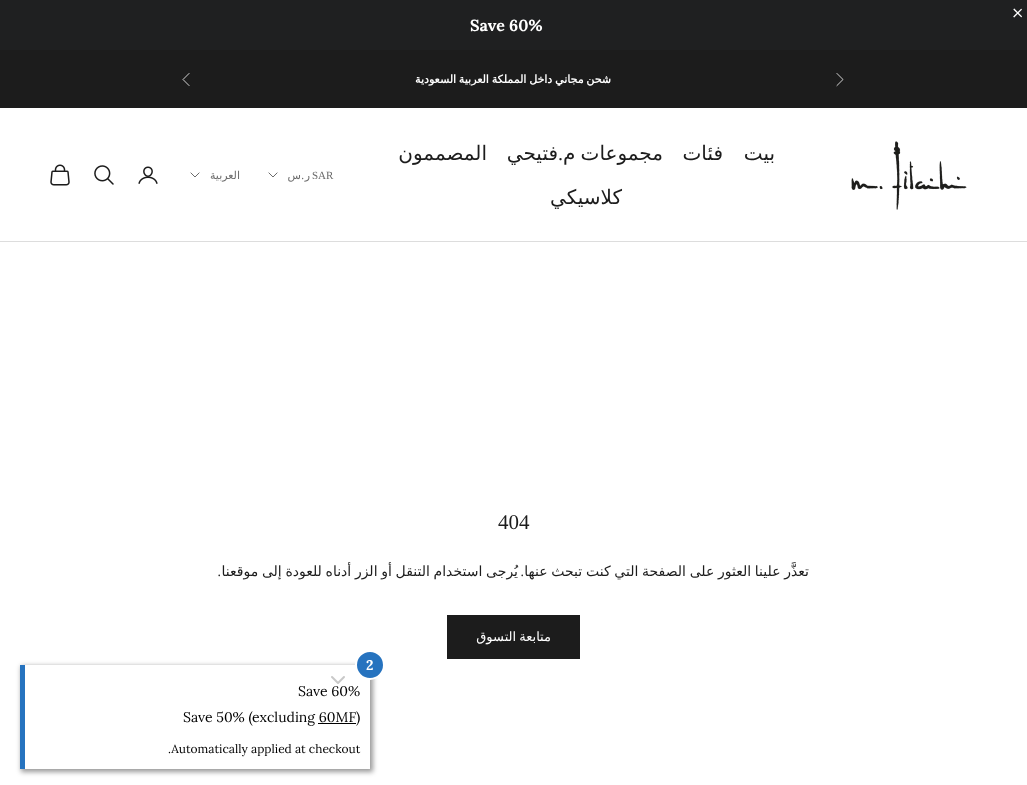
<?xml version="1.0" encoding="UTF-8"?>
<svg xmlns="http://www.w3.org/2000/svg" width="1027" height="785">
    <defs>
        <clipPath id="clip1"><path d="M 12 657 H 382 V 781 H 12 Z M 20 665 H 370 V 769 H 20 Z" clip-rule="evenodd"/></clipPath>
        <filter id="blur1" x="-50%" y="-200%" width="200%" height="500%"><feGaussianBlur stdDeviation="2.5"/></filter>
    </defs>
    <rect width="100%" height="100%" fill="#FFFFFF"/>
    <rect x="0" y="0" width="1027" height="50" fill="#1F2021"/>
    <text x="1011" y="22" font-family="Lora" font-size="25" fill="#FFFFFF">×</text>
    <text x="470" y="31" font-family="Lora" font-size="16" font-weight="700" fill="#FFFFFF">Save 60%</text>
    <rect x="0" y="50" width="1027" height="58" fill="#1C1C1C"/>
    <path d="M 837 85.5 L 843 79.5 L 837 73.5" fill="none" stroke="#FFFFFF" stroke-width="0.8" stroke-linecap="square"/>
    <text x="611" y="83" word-spacing="-0.75" font-family="DejaVu Sans" font-size="11" font-weight="700" direction="rtl" fill="#FFFFFF">شحن مجاني داخل المملكة العربية السعودية</text>
    <path d="M 189 73.5 L 183 79.5 L 189 85.5" fill="none" stroke="#FFFFFF" stroke-width="0.8" stroke-linecap="square"/>
    <rect x="0" y="241" width="1027" height="1" fill="#DDDDDD"/>
    <image x="851" y="141" width="116" height="69" href="img_01.png"/>
    <text x="775" y="160" font-family="DejaVu Sans" font-size="20" direction="rtl" fill="#1C1C1C">بيت</text>
    <text x="723" y="160" font-family="DejaVu Sans" font-size="20" direction="rtl" fill="#1C1C1C">فئات</text>
    <text x="663" y="160" word-spacing="-1" font-family="DejaVu Sans" font-size="20" direction="rtl" fill="#1C1C1C">مجموعات م</text>
    <text x="563" y="160" font-family="Liberation Serif" font-size="20" direction="rtl" fill="#1C1C1C">.</text>
    <text x="558" y="160" font-family="DejaVu Sans" font-size="20" direction="rtl" fill="#1C1C1C">فتيحي</text>
    <text x="487" y="160" font-family="DejaVu Sans" font-size="20" direction="rtl" fill="#1C1C1C">المصممون</text>
    <text x="622" y="204" font-family="DejaVu Sans" font-size="20" direction="rtl" fill="#1C1C1C">كلاسيكي</text>
    <text x="312" y="179" font-family="Liberation Serif" font-size="11" fill="#6B6B6B">SAR</text>
    <text x="304" y="179" font-family="Liberation Serif" font-size="11" direction="rtl" fill="#6B6B6B">.</text>
    <text x="310" y="179" font-family="DejaVu Sans" font-size="11" direction="rtl" fill="#6B6B6B">ر</text>
    <text x="301" y="179" font-family="DejaVu Sans" font-size="11" direction="rtl" fill="#6B6B6B">س</text>
    <path d="M 269 173 L 273 177 L 277 173" fill="none" stroke="#6B6B6B" stroke-linecap="square"/>
    <text x="240" y="179" font-family="DejaVu Sans" font-size="11" direction="rtl" fill="#6B6B6B">العربية</text>
    <path d="M 191 173 L 195 177 L 199 173" fill="none" stroke="#6B6B6B" stroke-linecap="square"/>
    <image x="138" y="166" width="20" height="18" href="img_02.png"/>
    <image x="94" y="165" width="20" height="20" href="img_03.png"/>
    <image x="50" y="164" width="20" height="22" href="img_04.png"/>
    <text x="498" y="529" font-family="Liberation Serif" font-size="21" fill="#1C1C1C">404</text>
    <text x="809" y="576" word-spacing="-0.75" font-family="DejaVu Sans" font-size="14" direction="rtl" fill="#1C1C1C">تعذَّر علينا العثور على الصفحة التي كنت تبحث عنها</text>
    <text x="524" y="576" font-family="Lora" font-size="14" direction="rtl" fill="#1C1C1C">.</text>
    <text x="518" y="576" word-spacing="-0.75" font-family="DejaVu Sans" font-size="14" direction="rtl" fill="#1C1C1C">يُرجى استخدام التنقل أو الزر أدناه للعودة إلى موقعنا</text>
    <text x="221" y="576" font-family="Lora" font-size="14" direction="rtl" fill="#1C1C1C">.</text>
    <rect x="447.5" y="615.5" width="132" height="43" fill="#1C1C1C" stroke="#1C1C1C"/>
    <text x="551" y="641" word-spacing="-1" font-family="DejaVu Sans" font-size="13" direction="rtl" fill="#FFFFFF">متابعة التسوق</text>
    <g clip-path="url(#clip1)">
        <rect x="21" y="666" width="352" height="106" fill="#000000" fill-opacity="0.4" filter="url(#blur1)"/>
    </g>
    <circle cx="370" cy="665" r="14" fill="#2673BF" stroke="#FFFFFF" stroke-width="2"/>
    <text x="366" y="670" font-family="Lora" font-size="14" font-weight="700" fill="#FFFFFF">2</text>
    <rect x="20" y="665" width="5" height="104" fill="#2673BF"/>
    <image x="331" y="676" width="14" height="8" href="img_05.png"/>
    <text x="298" y="696" font-family="Lora" font-size="14" fill="#000000">Save 60%</text>
    <text x="183" y="722" font-family="Lora" font-size="14" fill="#000000">Save 50% (excluding 60MF)</text>
    <rect x="318" y="723" width="38" height="1" fill="#000000"/>
    <text x="168" y="753" font-family="Lora" font-size="12" fill="#000000">.Automatically applied at checkout</text>
</svg>
